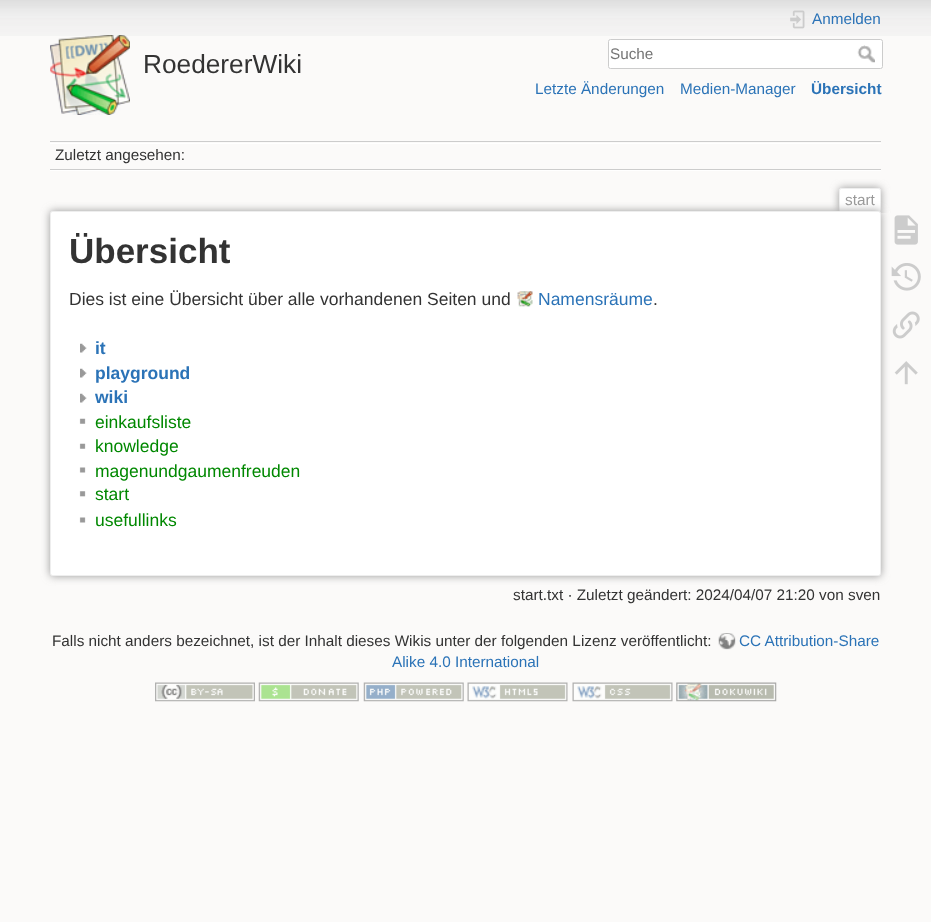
<?xml version="1.0" encoding="UTF-8"?>
<svg xmlns="http://www.w3.org/2000/svg" width="931" height="922">
    <defs>
        <clipPath id="clip1"><rect x="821" y="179" width="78" height="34"/></clipPath>
        <filter id="blur1" x="-50%" y="-200%" width="200%" height="500%"><feGaussianBlur stdDeviation="4"/></filter>
        <filter id="blur2" x="-50%" y="-200%" width="200%" height="500%"><feGaussianBlur stdDeviation="4.5"/></filter>
    </defs>
    <rect width="100%" height="100%" fill="#FBFAF9"/>
    <image x="0" y="0" width="931" height="36" href="img_01.png"/>
    <image x="50" y="35" width="80" height="80" href="img_02.png"/>
    <text x="143" y="73" font-family="Liberation Sans" font-size="26.25" fill="#333333">RoedererWiki</text>
    <image x="790" y="10" width="15" height="19" href="img_03.png"/>
    <text x="812" y="24" font-family="Liberation Sans" font-size="15.3" fill="#2B73B7">Anmelden</text>
    <rect x="608.5" y="39.5" width="274" height="29" rx="2" fill="#FFFFFF" stroke="#CCCCCC"/>
    <text x="610" y="59" font-family="Liberation Sans" font-size="15.3" fill="#757575">Suche</text>
    <image x="857" y="45" width="18" height="18" href="img_04.png"/>
    <text x="535" y="94" font-family="Liberation Sans" font-size="15.3" fill="#2B73B7">Letzte Änderungen</text>
    <text x="680" y="94" font-family="Liberation Sans" font-size="15.3" fill="#2B73B7">Medien-Manager</text>
    <text x="811" y="94" font-family="Liberation Sans" font-size="15.3" font-weight="700" fill="#2B73B7">Übersicht</text>
    <rect x="50" y="141" width="831" height="1" fill="#CCCCCC"/>
    <rect x="50" y="170" width="831" height="1" fill="#FFFFFF"/>
    <rect x="50" y="143" width="831" height="1" fill="#FFFFFF"/>
    <rect x="50" y="169" width="831" height="1" fill="#CCCCCC"/>
    <text x="55" y="160" font-family="Liberation Sans" font-size="15.3" fill="#333333">Zuletzt angesehen:</text>
    <g clip-path="url(#clip1)">
        <rect x="839" y="188" width="42" height="25" rx="2.5" fill="#999999" filter="url(#blur1)"/>
    </g>
    <path d="M 841 189 H 879 C 879.5 189 880 189.5 880 190 V 213 H 840 V 190 C 840 189.5 840.5 189 841 189 Z" fill="#FFFFFF"/>
    <rect x="840" y="188" width="40" height="1" fill="#EEEEEE"/>
    <rect x="880" y="189" width="1" height="24" fill="#EEEEEE"/>
    <rect x="839" y="189" width="1" height="24" fill="#EEEEEE"/>
    <text x="845" y="205" font-family="Liberation Sans" font-size="15.3" fill="#999999">start</text>
    <rect x="50" y="211" width="831" height="365" rx="2.5" fill="#999999" filter="url(#blur2)"/>
    <rect x="50.5" y="211.5" width="830" height="364" rx="2" fill="#FFFFFF" stroke="#EEEEEE"/>
    <text x="69" y="263" font-family="Liberation Sans" font-size="35" font-weight="700" fill="#333333">Übersicht</text>
    <text x="69" y="305" font-family="Liberation Sans" font-size="17.5" fill="#333333">Dies ist eine Übersicht über alle vorhandenen Seiten und</text>
    <image x="517" y="291" width="16" height="16" href="img_05.png"/>
    <text x="538" y="305" font-family="Liberation Sans" font-size="17.5" fill="#2B73B7">Namensräume</text>
    <text x="653" y="305" font-family="Liberation Sans" font-size="17.5" fill="#333333">.</text>
    <image x="80" y="343" width="7" height="10" href="img_06.png"/>
    <text x="95" y="354" font-family="Liberation Sans" font-size="17.5" font-weight="700" fill="#2B73B7">it</text>
    <image x="80" y="368" width="7" height="10" href="img_06.png"/>
    <text x="95" y="379" font-family="Liberation Sans" font-size="17.5" font-weight="700" fill="#2B73B7">playground</text>
    <image x="80" y="393" width="7" height="10" href="img_06.png"/>
    <text x="95" y="403" font-family="Liberation Sans" font-size="17.5" font-weight="700" fill="#2B73B7">wiki</text>
    <image x="79" y="418" width="7" height="6" href="img_07.png"/>
    <text x="95" y="428" font-family="Liberation Sans" font-size="17.5" fill="#008800">einkaufsliste</text>
    <image x="79" y="443" width="7" height="6" href="img_07.png"/>
    <text x="95" y="452" font-family="Liberation Sans" font-size="17.5" fill="#008800">knowledge</text>
    <image x="79" y="467" width="7" height="6" href="img_08.png"/>
    <text x="95" y="477" font-family="Liberation Sans" font-size="17.5" fill="#008800">magenundgaumenfreuden</text>
    <image x="79" y="491" width="7" height="6" href="img_09.png"/>
    <text x="95" y="500" font-family="Liberation Sans" font-size="17.5" fill="#008800">start</text>
    <image x="79" y="517" width="7" height="6" href="img_08.png"/>
    <text x="95" y="526" font-family="Liberation Sans" font-size="17.5" fill="#008800">usefullinks</text>
    <text x="513" y="600" font-family="Liberation Sans" font-size="15.3" fill="#333333">start.txt · Zuletzt geändert: 2024/04/07 21:20 von sven</text>
    <image x="894" y="215" width="24" height="30" href="img_10.png"/>
    <image x="891" y="263" width="30" height="28" href="img_11.png"/>
    <image x="892" y="311" width="28" height="28" href="img_12.png"/>
    <image x="894" y="361" width="24" height="24" href="img_13.png"/>
    <text x="52" y="646" font-family="Liberation Sans" font-size="15.3" fill="#333333">Falls nicht anders bezeichnet, ist der Inhalt dieses Wikis unter der folgenden Lizenz veröffentlicht:</text>
    <image x="718" y="633" width="18" height="17" href="img_14.png"/>
    <text x="739" y="646" font-family="Liberation Sans" font-size="15.3" fill="#2B73B7">CC Attribution-Share</text>
    <text x="392" y="667" font-family="Liberation Sans" font-size="15.3" fill="#2B73B7">Alike 4.0 International</text>
    <image x="155" y="682" width="100" height="20" href="img_15.png"/>
    <image x="258" y="682" width="101" height="20" href="img_16.png"/>
    <image x="363" y="682" width="101" height="20" href="img_17.png"/>
    <image x="467" y="682" width="101" height="20" href="img_18.png"/>
    <image x="572" y="682" width="101" height="20" href="img_19.png"/>
    <image x="676" y="682" width="101" height="20" href="img_20.png"/>
</svg>
